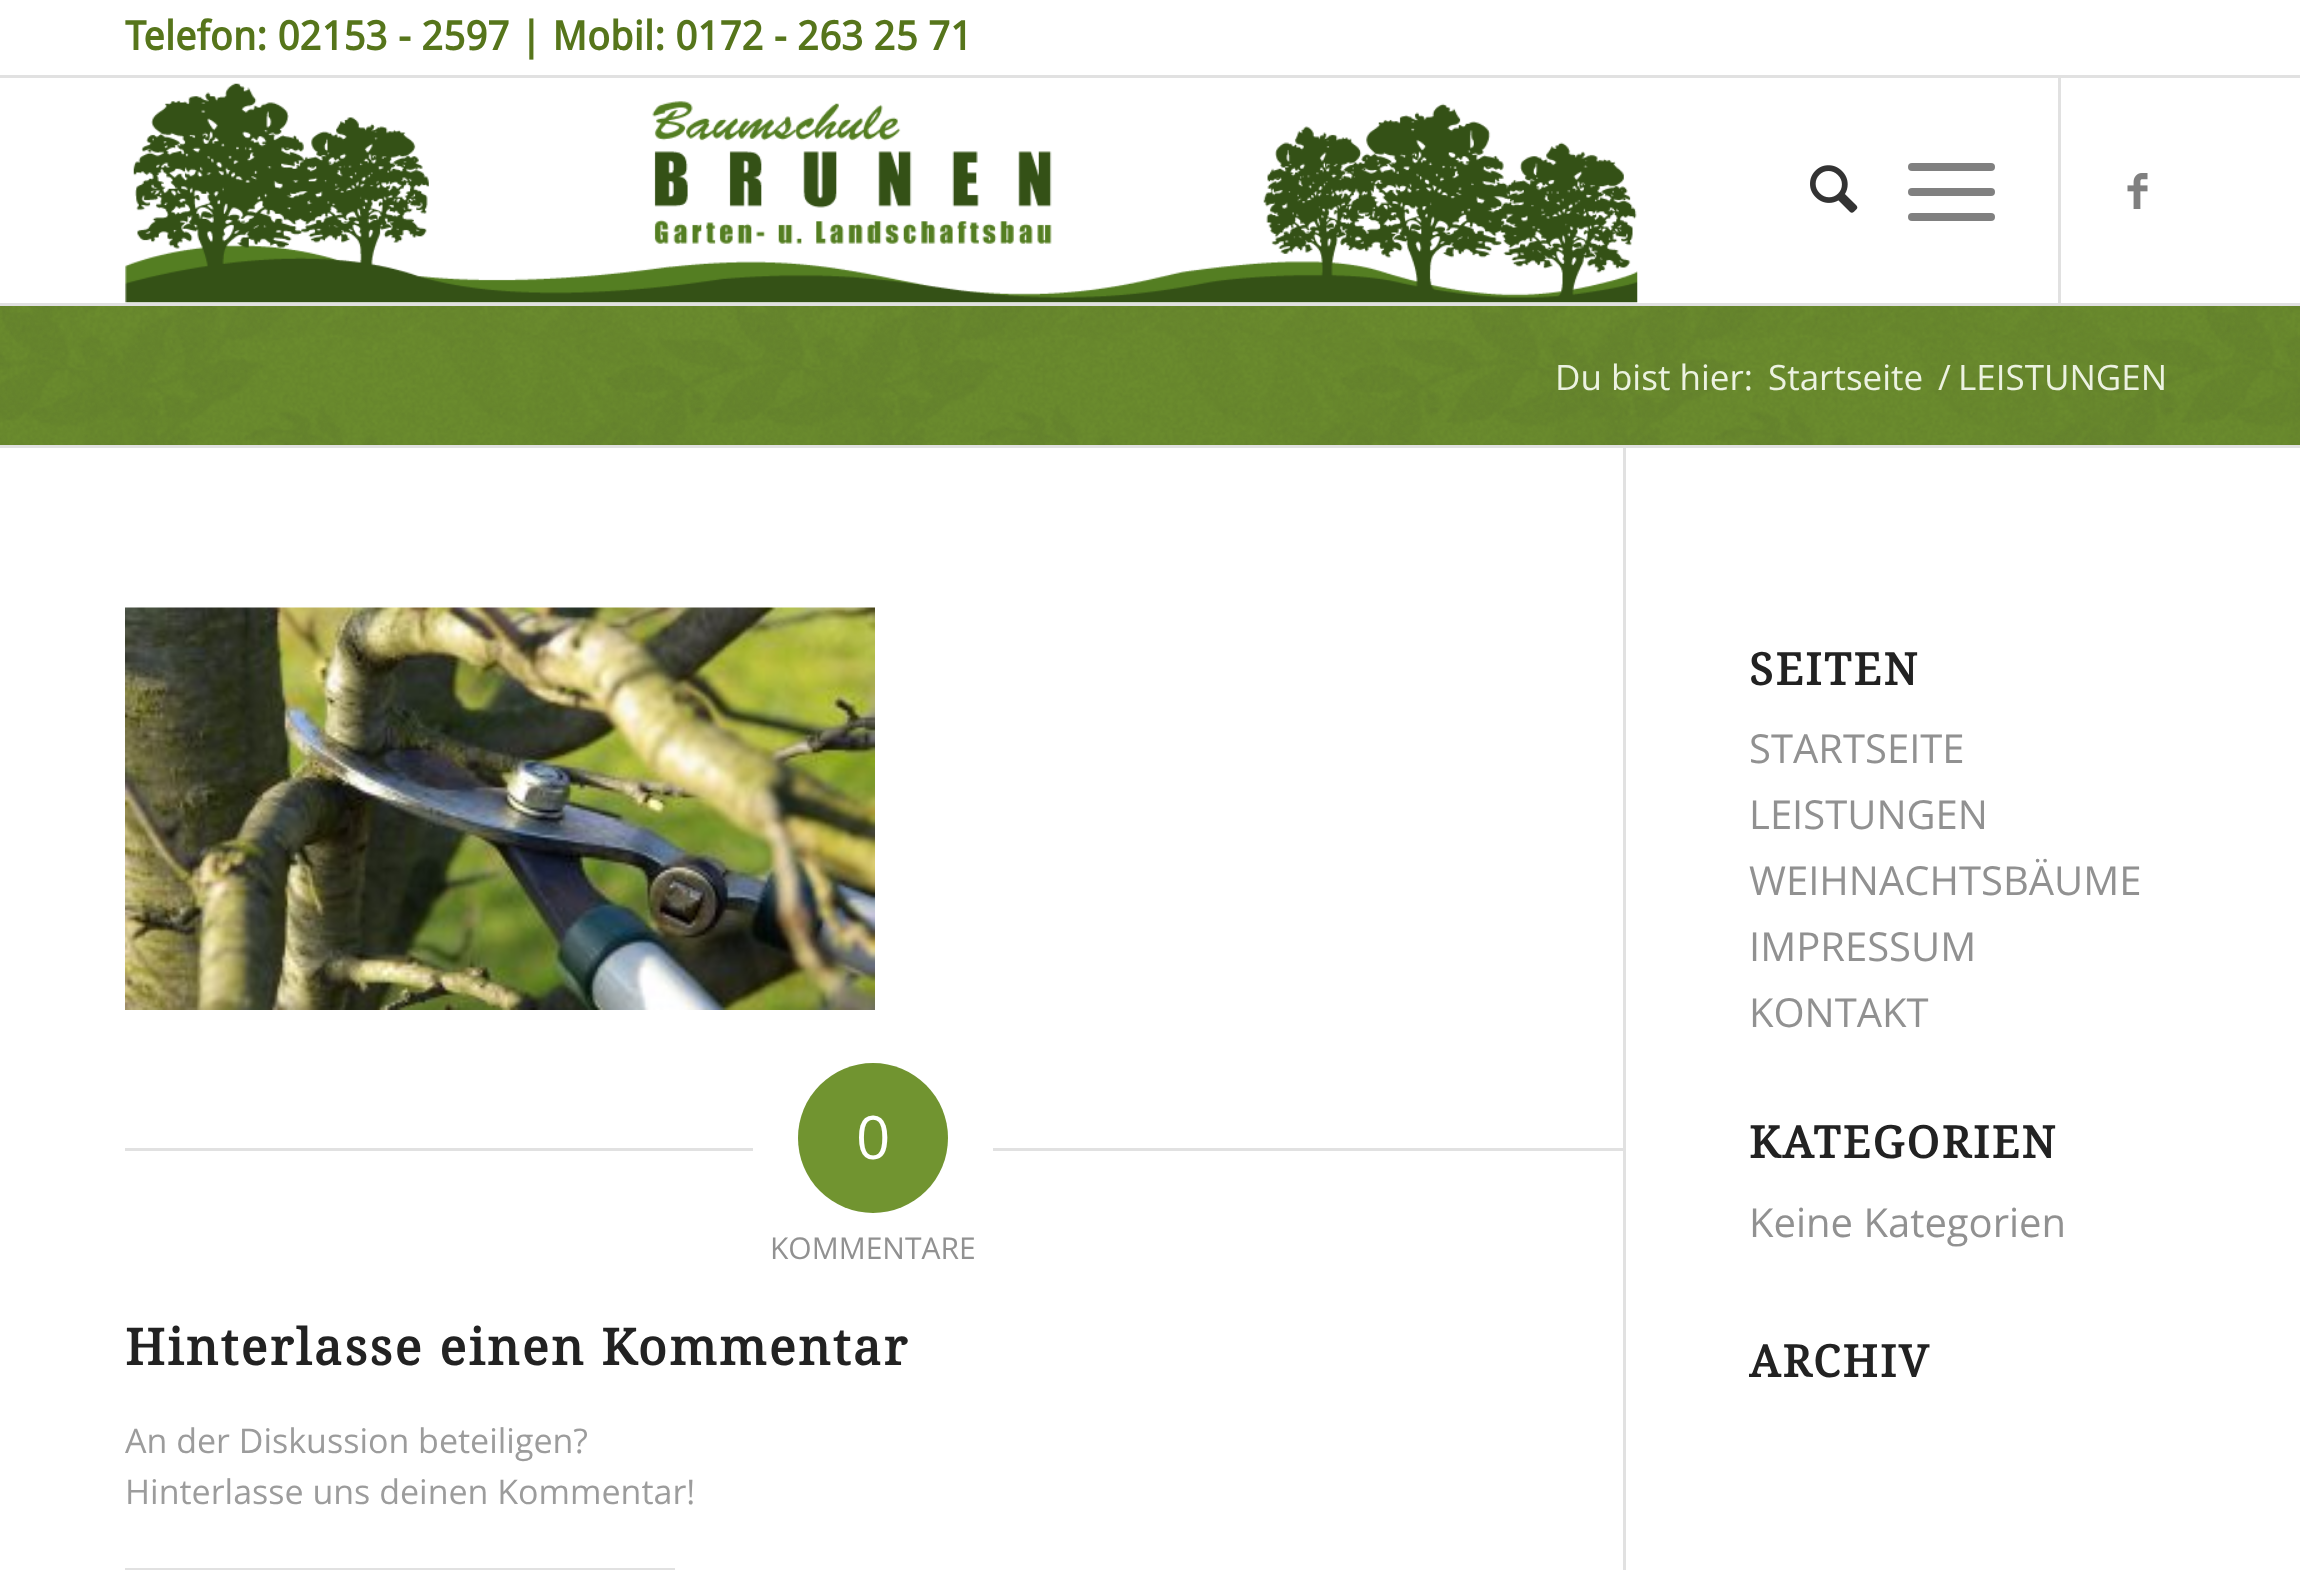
<?xml version="1.0" encoding="UTF-8"?>
<svg xmlns="http://www.w3.org/2000/svg" width="2300" height="1570">
    <rect width="100%" height="100%" fill="#FFFFFF"/>
    <rect x="0" y="75" width="2300" height="3" fill="#E1E1E1"/>
    <text x="125" y="50" font-family="Droid Sans" font-size="40" font-weight="700" fill="#56751B">Telefon: 02153 - 2597 | Mobil: 0172 - 263 25 71</text>
    <rect x="0" y="303" width="2300" height="3" fill="#E1E1E1"/>
    <image x="125" y="83" width="1513" height="220" href="img_01.png"/>
    <rect x="2058" y="78" width="3" height="225" fill="#E1E1E1"/>
    <image x="1810" y="165" width="48" height="48" href="img_02.png"/>
    <rect x="1908" y="188" width="87" height="8" rx="4" fill="#808080"/>
    <rect x="1908" y="163" width="87" height="8" rx="4" fill="#808080"/>
    <rect x="1908" y="213" width="87" height="8" rx="4" fill="#808080"/>
    <image x="2127" y="173" width="21" height="36" href="img_03.png"/>
    <rect x="0" y="306" width="2300" height="139" fill="#719430"/>
    <image x="0" y="306" width="2300" height="139" href="img_04.png"/>
    <text x="1555" y="390" font-family="Open Sans" font-size="35" fill="#ECF2E1">Du bist hier:</text>
    <text x="1768" y="390" font-family="Open Sans" font-size="35" fill="#ECF2E1">Startseite</text>
    <text x="1938" y="390" font-family="Open Sans" font-size="35" fill="#ECF2E1">/</text>
    <text x="1958" y="390" font-family="Open Sans" font-size="35" fill="#ECF2E1">LEISTUNGEN</text>
    <rect x="0" y="445" width="2300" height="3" fill="#E1E1E1"/>
    <rect x="1623" y="448" width="3" height="1122" fill="#E1E1E1"/>
    <image x="125" y="607" width="750" height="403" href="img_05.png"/>
    <rect x="125" y="1148" width="628" height="3" fill="#E1E1E1"/>
    <circle cx="873" cy="1138" r="75" fill="#719430"/>
    <text x="856" y="1159" font-family="Open Sans" font-size="60" fill="#FFFFFF">0</text>
    <rect x="993" y="1148" width="630" height="3" fill="#E1E1E1"/>
    <text x="770" y="1259" font-family="Open Sans" font-size="30" fill="#919191">KOMMENTARE</text>
    <text x="125" y="1365" font-family="Droid Serif" font-size="50" font-weight="700" letter-spacing="2.5" fill="#222222">Hinterlasse einen Kommentar</text>
    <text font-family="Open Sans" font-size="34" fill="#9C9C9C">
        <tspan x="125" y="1453">An der Diskussion beteiligen?</tspan>
        <tspan x="125" y="1504">Hinterlasse uns deinen Kommentar!</tspan>
    </text>
    <rect x="126.5" y="1569.5" width="547" height="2" fill="none" stroke="#E1E1E1" stroke-width="3"/>
    <text x="1749" y="685" font-family="Droid Serif" font-size="44" font-weight="700" letter-spacing="2.5" fill="#222222">SEITEN</text>
    <text font-family="Open Sans" font-size="40" fill="#919191">
        <tspan x="1749" y="763">STARTSEITE</tspan>
        <tspan x="1749" y="829">LEISTUNGEN</tspan>
        <tspan x="1749" y="895">WEIHNACHTSBÄUME</tspan>
        <tspan x="1749" y="961">IMPRESSUM</tspan>
        <tspan x="1749" y="1027">KONTAKT</tspan>
    </text>
    <text x="1749" y="1158" font-family="Droid Serif" font-size="44" font-weight="700" letter-spacing="2.5" fill="#222222">KATEGORIEN</text>
    <text x="1749" y="1237" font-family="Open Sans" font-size="40" fill="#919191">Keine Kategorien</text>
    <text x="1749" y="1377" font-family="Droid Serif" font-size="44" font-weight="700" letter-spacing="2.5" fill="#222222">ARCHIV</text>
</svg>
